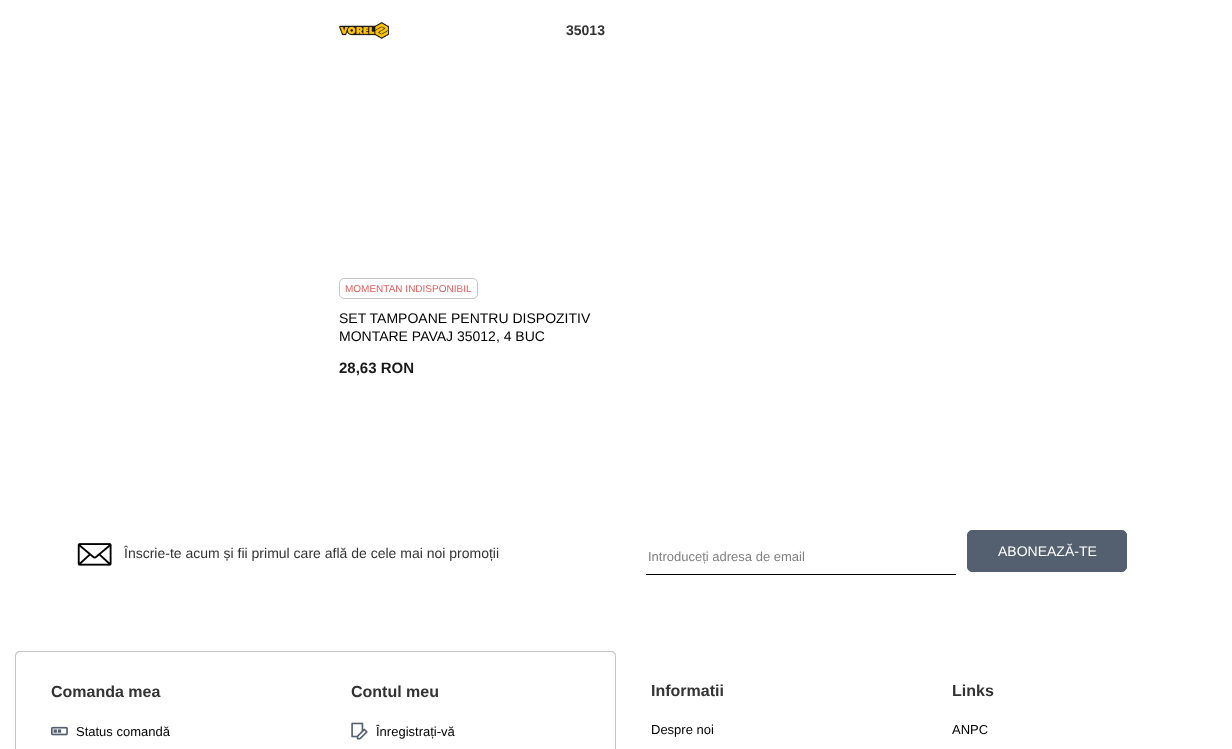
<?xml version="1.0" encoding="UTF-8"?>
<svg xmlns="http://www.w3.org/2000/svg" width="1232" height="749">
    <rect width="100%" height="100%" fill="#FFFFFF"/>
    <image x="339" y="22" width="50" height="17" href="img_01.png"/>
    <text x="566" y="35" font-family="Liberation Sans" font-size="14" font-weight="700" fill="#333333">35013</text>
    <rect x="339.5" y="278.5" width="138" height="20" rx="4.5" fill="none" stroke="#C4C7C8"/>
    <text x="345" y="292" font-family="Liberation Sans" font-size="10" fill="#E35C5C">MOMENTAN INDISPONIBIL</text>
    <text font-family="Liberation Sans" font-size="14" fill="#000000">
        <tspan x="339" y="323">SET TAMPOANE PENTRU DISPOZITIV</tspan>
        <tspan x="339" y="341">MONTARE PAVAJ 35012, 4 BUC</tspan>
    </text>
    <text x="339" y="373" font-family="Liberation Sans" font-size="15" font-weight="700" fill="#1A1A1A">28,63 RON</text>
    <image x="77" y="543" width="35" height="23" href="img_02.png"/>
    <text x="124" y="558" font-family="Liberation Sans" font-size="14" fill="#333333">Înscrie-te acum și fii primul care află de cele mai noi promoții</text>
    <text x="648" y="561" font-family="Liberation Sans" font-size="13" fill="#808080">Introduceți adresa de email</text>
    <rect x="646" y="574" width="310" height="1" fill="#000000"/>
    <rect x="967.5" y="530.5" width="159" height="41" rx="4.5" fill="#546070" stroke="#546070"/>
    <text x="998" y="556" font-family="Liberation Sans" font-size="14" fill="#FFFFFF">ABONEAZĂ-TE</text>
    <path d="M 20 651 H 316 V 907 H 20 C 17 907 15 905 15 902 V 656 C 15 653 17 651 20 651 Z M 20 652 H 316 V 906 H 20 C 18 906 16 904 16 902 V 656 C 16 654 18 652 20 652 Z" fill="#C4C7C8" fill-rule="evenodd"/>
    <text x="51" y="697" font-family="Liberation Sans" font-size="16" font-weight="700" fill="#333333">Comanda mea</text>
    <image x="51" y="726" width="17" height="10" href="img_03.png"/>
    <text x="76" y="736" font-family="Liberation Sans" font-size="13" fill="#000000">Status comandă</text>
    <path d="M 316 651 H 611 C 614 651 616 653 616 656 V 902 C 616 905 614 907 611 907 H 316 Z M 316 652 H 611 C 613 652 615 654 615 656 V 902 C 615 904 613 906 611 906 H 316 Z" fill="#C4C7C8" fill-rule="evenodd"/>
    <text x="351" y="697" font-family="Liberation Sans" font-size="16" font-weight="700" fill="#333333">Contul meu</text>
    <image x="351" y="722" width="17" height="18" href="img_04.png"/>
    <text x="376" y="736" font-family="Liberation Sans" font-size="13" fill="#000000">Înregistrați-vă</text>
    <text x="651" y="696" font-family="Liberation Sans" font-size="16" font-weight="700" fill="#333333">Informatii</text>
    <text x="651" y="734" font-family="Liberation Sans" font-size="13" fill="#000000">Despre noi</text>
    <text x="952" y="696" font-family="Liberation Sans" font-size="16" font-weight="700" fill="#333333">Links</text>
    <text x="952" y="734" font-family="Liberation Sans" font-size="13" fill="#000000">ANPC</text>
</svg>
